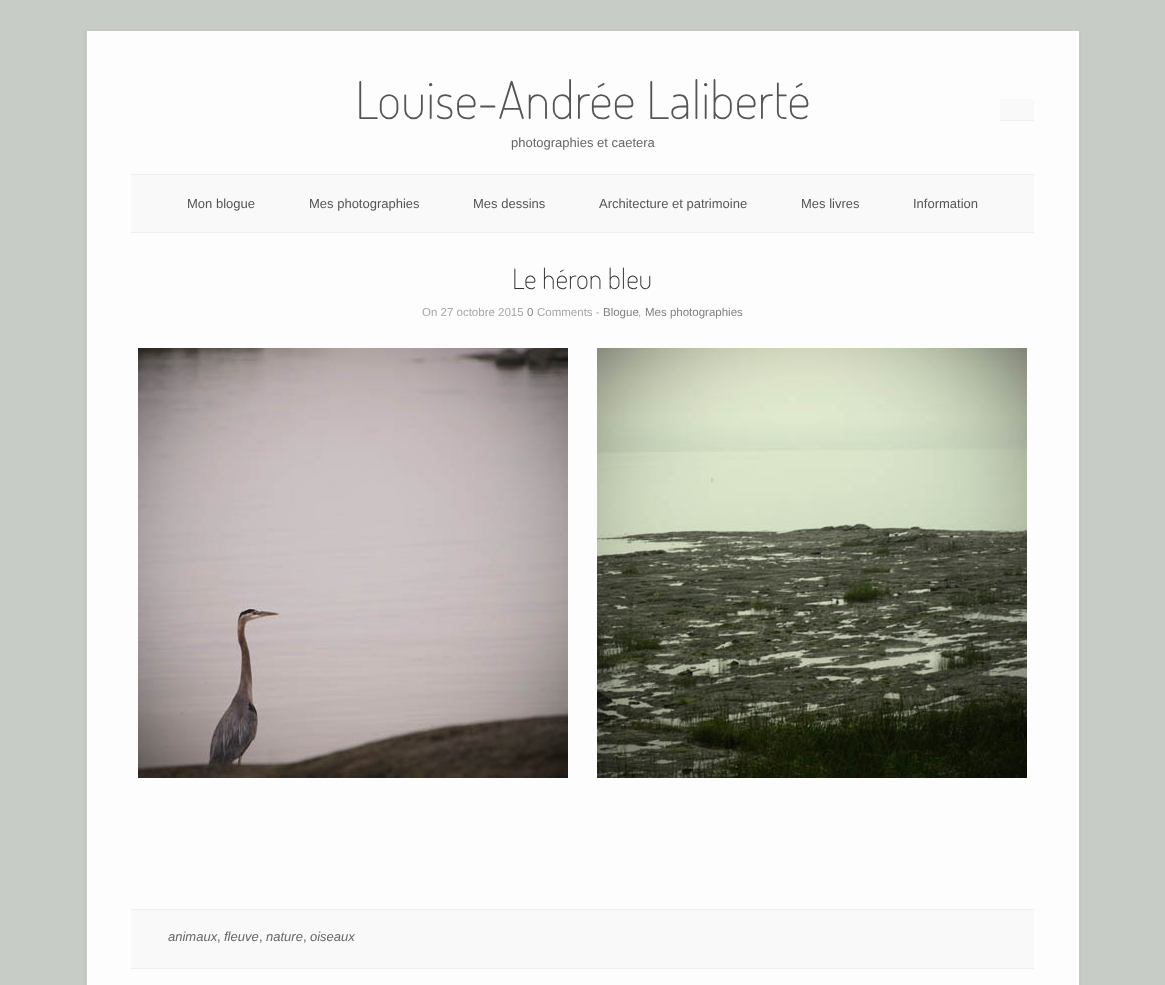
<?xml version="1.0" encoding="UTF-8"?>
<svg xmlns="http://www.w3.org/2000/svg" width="1165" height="985">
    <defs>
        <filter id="blur1" x="-50%" y="-200%" width="200%" height="500%"><feGaussianBlur stdDeviation="1"/></filter>
    </defs>
    <rect width="100%" height="100%" fill="#C7CCC7"/>
    <rect x="86" y="31" width="994" height="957" fill="#000000" fill-opacity="0.1" filter="url(#blur1)"/>
    <rect x="86.5" y="30.5" width="993" height="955" fill="#FDFDFD" stroke="#CBC9C7"/>
    <text x="355" y="119" font-family="'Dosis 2'" font-size="52" font-weight="200" fill="#555555">Louise-Andrée Laliberté</text>
    <text x="511" y="147" font-family="Liberation Sans" font-size="13" fill="#666666">photographies et caetera</text>
    <rect x="1000" y="99" width="34" height="21" fill="#F9F9F9"/>
    <rect x="1000" y="120" width="34" height="1" fill="#EEEEEE"/>
    <rect x="131" y="175" width="903" height="57" fill="#F9F9F9"/>
    <rect x="131" y="174" width="903" height="1" fill="#EEEEEE"/>
    <rect x="131" y="232" width="903" height="1" fill="#EEEEEE"/>
    <text x="187" y="208" font-family="Liberation Sans" font-size="13" fill="#555555">Mon blogue</text>
    <text x="309" y="208" font-family="Liberation Sans" font-size="13" fill="#555555">Mes photographies</text>
    <text x="473" y="208" font-family="Liberation Sans" font-size="13" fill="#555555">Mes dessins</text>
    <text x="599" y="208" font-family="Liberation Sans" font-size="13" fill="#555555">Architecture et patrimoine</text>
    <text x="801" y="208" font-family="Liberation Sans" font-size="13" fill="#555555">Mes livres</text>
    <text x="913" y="208" font-family="Liberation Sans" font-size="13" fill="#555555">Information</text>
    <text x="512" y="289" font-family="Dosis" font-size="28" font-weight="200" fill="#333333">Le héron bleu</text>
    <text x="422" y="316" font-family="Liberation Sans" font-size="11.5" fill="#A6A6A6">On 27 octobre 2015</text>
    <text x="527" y="316" font-family="Liberation Sans" font-size="11.5" fill="#808080">0</text>
    <text x="537" y="316" font-family="Liberation Sans" font-size="11.5" fill="#A6A6A6">Comments -</text>
    <text x="603" y="316" font-family="Liberation Sans" font-size="11.5" fill="#808080">Blogue</text>
    <text x="638" y="316" font-family="Liberation Sans" font-size="11.5" fill="#A6A6A6">,</text>
    <text x="645" y="316" font-family="Liberation Sans" font-size="11.5" fill="#808080">Mes photographies</text>
    <image x="138" y="348" width="430" height="430" href="img_01.png"/>
    <image x="597" y="348" width="430" height="430" href="img_02.png"/>
    <rect x="131" y="910" width="903" height="58" fill="#F9F9F9"/>
    <rect x="131" y="909" width="903" height="1" fill="#EEEEEE"/>
    <rect x="131" y="968" width="903" height="1" fill="#EEEEEE"/>
    <text x="168" y="941" font-family="Liberation Sans" font-size="13" font-style="italic" fill="#666666">animaux</text>
    <text x="217" y="941" font-family="Liberation Sans" font-size="13" fill="#666666">,</text>
    <text x="224" y="941" font-family="Liberation Sans" font-size="13" font-style="italic" fill="#666666">fleuve</text>
    <text x="259" y="941" font-family="Liberation Sans" font-size="13" fill="#666666">,</text>
    <text x="266" y="941" font-family="Liberation Sans" font-size="13" font-style="italic" fill="#666666">nature</text>
    <text x="303" y="941" font-family="Liberation Sans" font-size="13" fill="#666666">,</text>
    <text x="310" y="941" font-family="Liberation Sans" font-size="13" font-style="italic" fill="#666666">oiseaux</text>
</svg>
